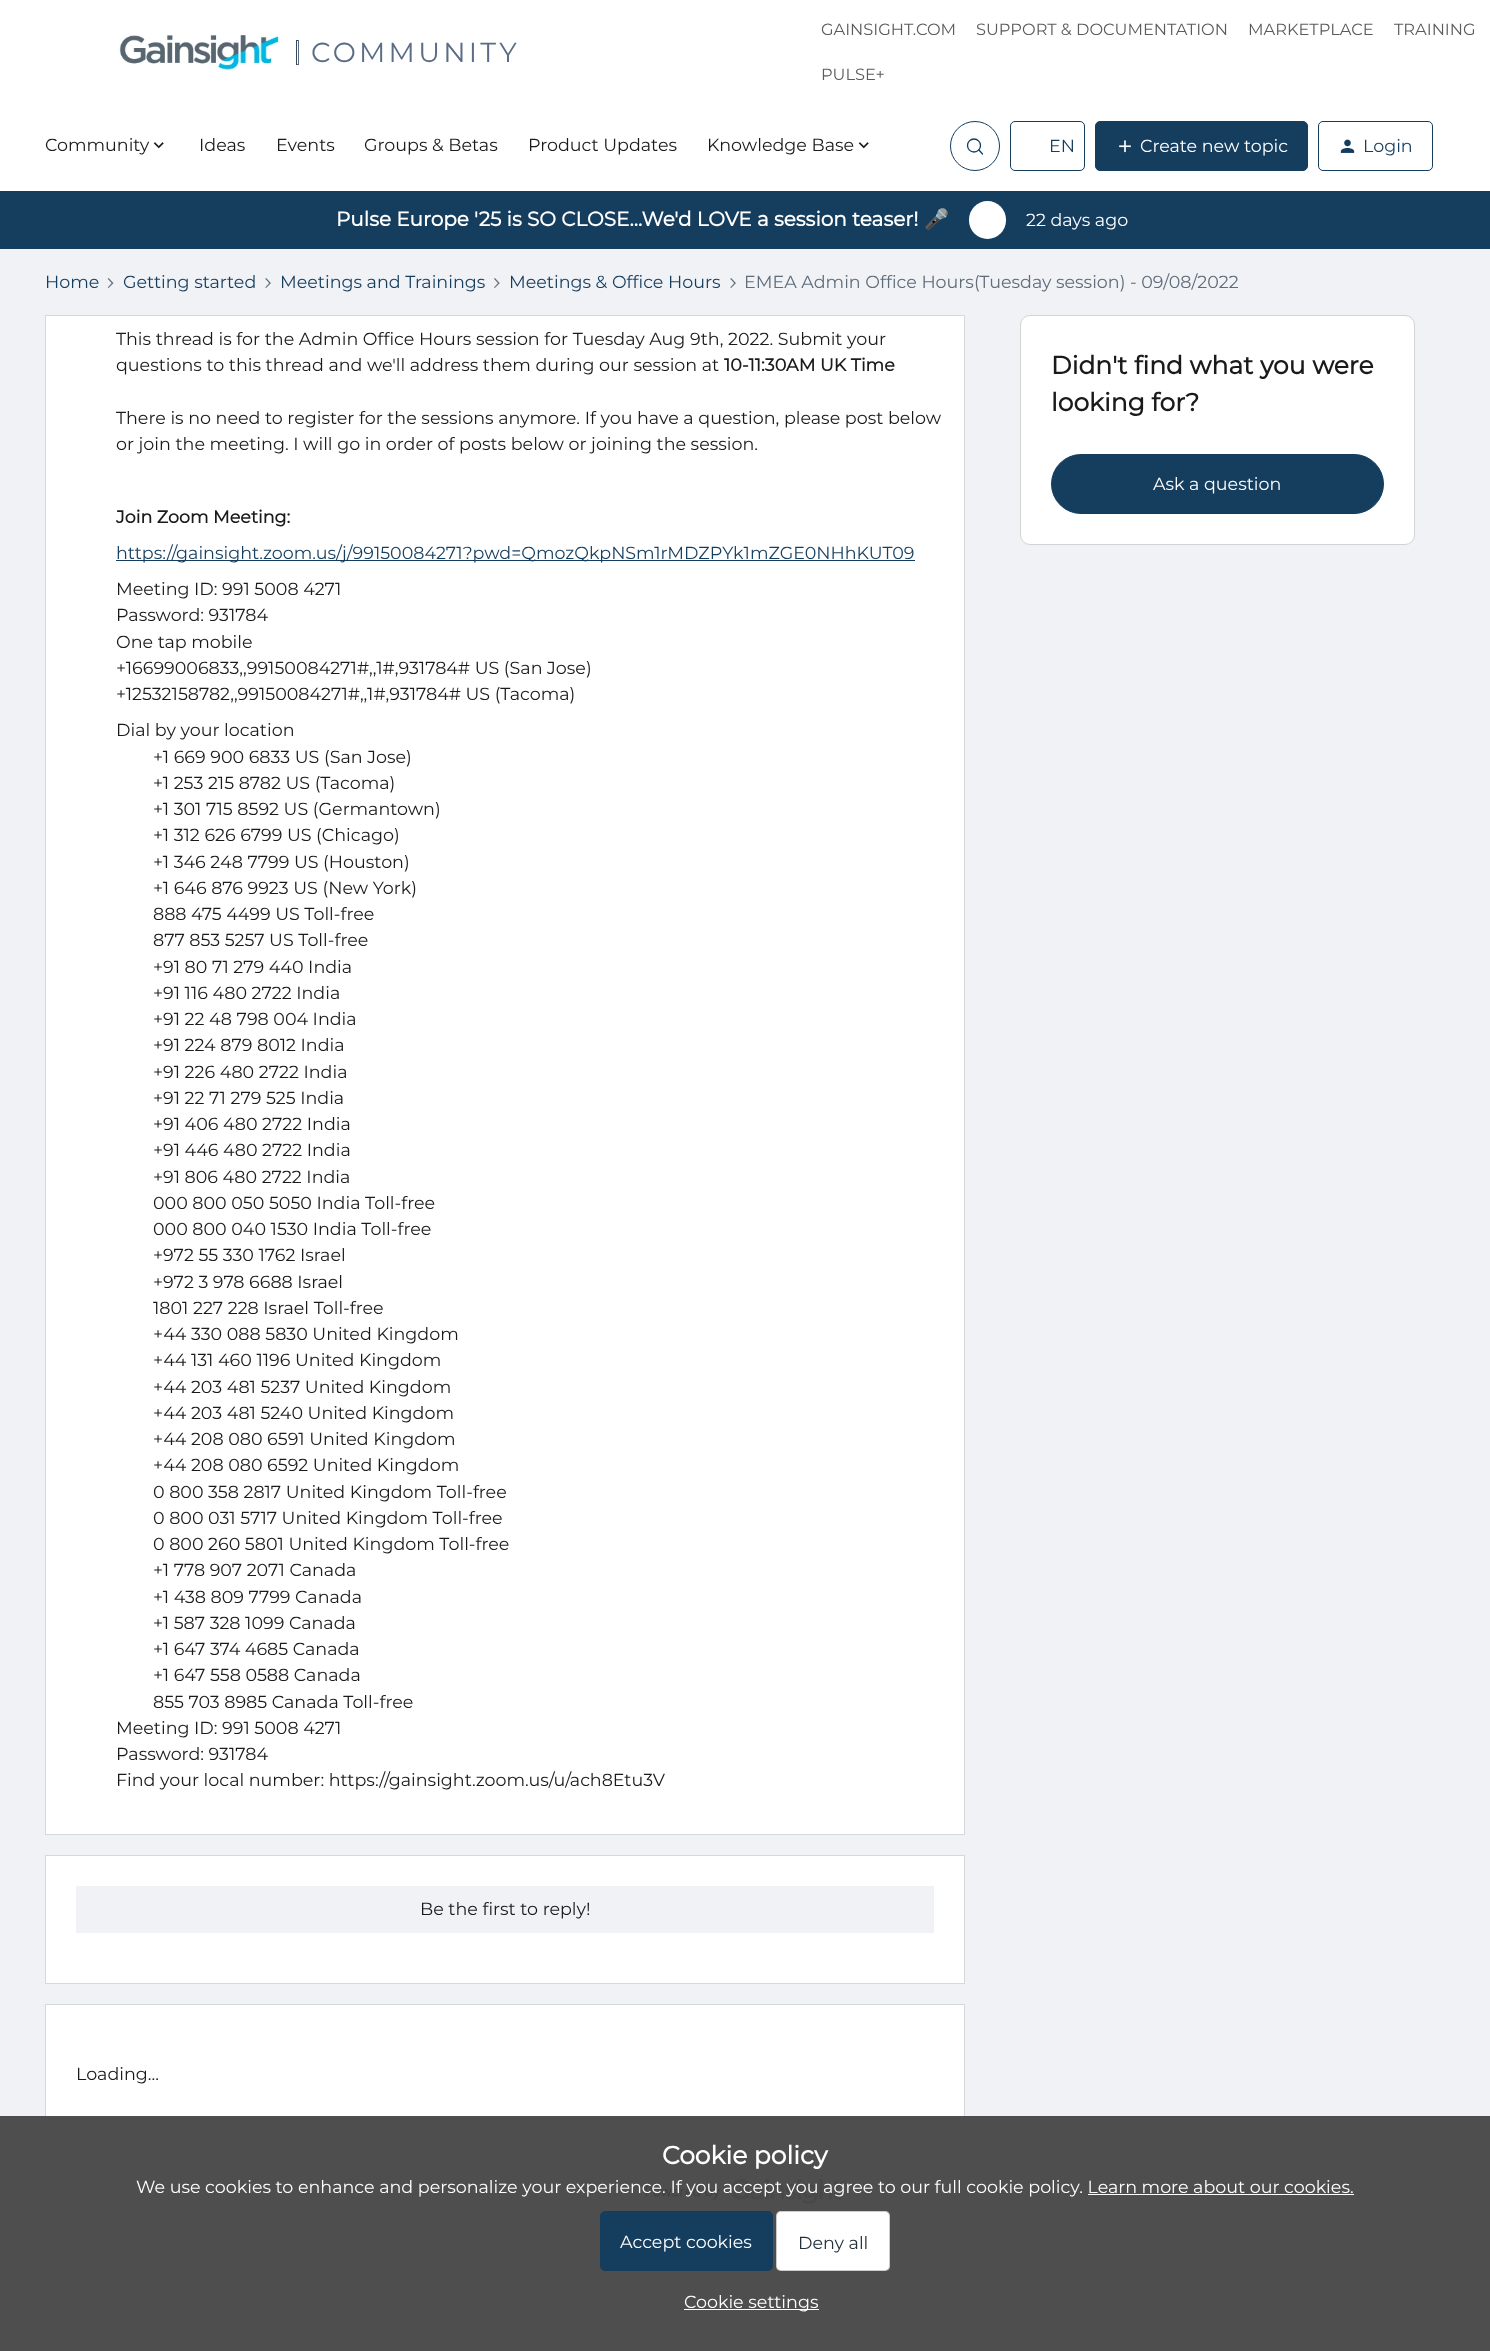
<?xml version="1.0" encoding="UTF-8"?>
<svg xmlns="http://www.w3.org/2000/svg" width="1490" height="2351">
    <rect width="100%" height="100%" fill="#F0F2F6"/>
    <rect x="0" y="0" width="1490" height="191" fill="#FFFFFF"/>
    <image x="119" y="35" width="160" height="35" href="img_01.png"/>
    <rect x="296" y="40" width="3" height="1" fill="#3D4959"/>
    <rect x="298" y="40" width="1" height="25" fill="#5B6D86"/>
    <rect x="296" y="64" width="3" height="1" fill="#5B6D86"/>
    <rect x="296" y="40" width="1" height="25" fill="#3D4959"/>
    <text x="311" y="62" font-family="Montserrat" font-size="27.5" font-weight="100" letter-spacing="3.25" fill="#5B6D86">COMMUNITY</text>
    <text x="821" y="35" font-family="Montserrat" font-size="16.25" font-weight="100" fill="#5B5B5B">GAINSIGHT.COM</text>
    <text x="976" y="35" font-family="Montserrat" font-size="16.25" font-weight="100" fill="#5B5B5B">SUPPORT &amp; DOCUMENTATION</text>
    <text x="1248" y="35" font-family="Montserrat" font-size="16.25" font-weight="100" fill="#5B5B5B">MARKETPLACE</text>
    <text x="1394" y="35" font-family="Montserrat" font-size="16.25" font-weight="100" fill="#5B5B5B">TRAINING</text>
    <text x="821" y="80" font-family="Montserrat" font-size="16.25" font-weight="100" fill="#5B5B5B">PULSE+</text>
    <text x="45" y="151" font-family="Montserrat" font-size="17.5" font-weight="100" fill="#1A1A1A">Community</text>
    <image x="153" y="142" width="11" height="7" href="img_02.png"/>
    <text x="199" y="151" font-family="Montserrat" font-size="17.5" font-weight="100" fill="#1A1A1A">Ideas</text>
    <text x="276" y="151" font-family="Montserrat" font-size="17.5" font-weight="100" fill="#1A1A1A">Events</text>
    <text x="364" y="151" font-family="Montserrat" font-size="17.5" font-weight="100" fill="#1A1A1A">Groups &amp; Betas</text>
    <text x="528" y="151" font-family="Montserrat" font-size="17.5" font-weight="100" fill="#1A1A1A">Product Updates</text>
    <text x="707" y="151" font-family="Montserrat" font-size="17.5" font-weight="100" fill="#1A1A1A">Knowledge Base</text>
    <image x="858" y="142" width="11" height="7" href="img_02.png"/>
    <circle cx="975" cy="146" r="24.5" fill="none" stroke="#153D5E"/>
    <circle cx="974" cy="145.5" r="6.5" fill="none" stroke="#153D5E" stroke-width="1.3"/>
    <path d="M 979 150 L 982.5 154" fill="none" stroke="#153D5E" stroke-width="1.3" stroke-linecap="round"/>
    <rect x="1010.5" y="121.5" width="74" height="49" rx="4.5" fill="none" stroke="#153D5E"/>
    <text x="1049" y="152" font-family="Montserrat" font-size="17.5" font-weight="100" fill="#153D5E">EN</text>
    <rect x="1095.5" y="121.5" width="212" height="49" rx="4.5" fill="#153D5E" stroke="#153D5E"/>
    <image x="1119" y="140" width="12" height="13" href="img_03.png"/>
    <text x="1140" y="152" font-family="Montserrat" font-size="17.5" font-weight="100" fill="#FFFFFF">Create new topic</text>
    <rect x="1318.5" y="121.5" width="114" height="49" rx="4.5" fill="none" stroke="#153D5E"/>
    <image x="1340" y="139" width="15" height="14" href="img_04.png"/>
    <text x="1363" y="152" font-family="Montserrat" font-size="17.5" font-weight="100" fill="#153D5E">Login</text>
    <rect x="0" y="191" width="1490" height="58" fill="#153D5E"/>
    <text x="336" y="226" font-family="Montserrat" font-size="20" font-weight="700" fill="#FFFFFF">Pulse Europe '25 is SO CLOSE...We'd LOVE a session teaser!</text>
    <text x="924" y="226" font-family="Noto Color Emoji" font-size="20" font-weight="700" fill="#FFFFFF">🎤</text>
    <rect x="969" y="201" width="37" height="38" rx="18.5" fill="#FFFFFF"/>
    <text x="1026" y="226" font-family="Montserrat" font-size="17.5" font-weight="100" fill="#FFFFFF">22 days ago</text>
    <text x="45" y="288" font-family="Montserrat" font-size="17.5" font-weight="100" fill="#153D5E">Home</text>
    <image x="107" y="278" width="7" height="10" href="img_05.png"/>
    <text x="123" y="288" font-family="Montserrat" font-size="17.5" font-weight="100" fill="#153D5E">Getting started</text>
    <image x="265" y="278" width="6" height="10" href="img_06.png"/>
    <text x="280" y="288" font-family="Montserrat" font-size="17.5" font-weight="100" fill="#153D5E">Meetings and Trainings</text>
    <image x="494" y="278" width="6" height="10" href="img_07.png"/>
    <text x="509" y="288" font-family="Montserrat" font-size="17.5" font-weight="100" fill="#153D5E">Meetings &amp; Office Hours</text>
    <image x="730" y="278" width="6" height="10" href="img_06.png"/>
    <text x="744" y="288" font-family="Montserrat" font-size="17.5" font-weight="100" fill="#5F6C7A">EMEA Admin Office Hours(Tuesday session) - 09/08/2022</text>
    <rect x="45.5" y="315.5" width="919" height="1519" fill="#FFFFFF" stroke="#D5D9DE"/>
    <text font-family="Montserrat" font-size="17.5" font-weight="100" fill="#1A1A1A">
        <tspan x="116" y="345">This thread is for the Admin Office Hours session for Tuesday Aug 9th, 2022. Submit your</tspan>
        <tspan x="116" y="371">questions to this thread and we'll address them during our session at</tspan>
    </text>
    <text x="724" y="371" font-family="Montserrat" font-size="17.5" font-weight="700" fill="#1A1A1A">10-11:30AM UK Time</text>
    <text font-family="Montserrat" font-size="17.5" font-weight="100" fill="#1A1A1A">
        <tspan x="116" y="424">There is no need to register for the sessions anymore. If you have a question, please post below</tspan>
        <tspan x="116" y="450">or join the meeting. I will go in order of posts below or joining the session.</tspan>
    </text>
    <text x="116" y="523" font-family="Montserrat" font-size="17.5" font-weight="700" fill="#1A1A1A">Join Zoom Meeting:</text>
    <rect x="116" y="560" width="799" height="1" fill="#153D5E"/>
    <text x="116" y="559" font-family="Montserrat" font-size="17.5" font-weight="100" fill="#153D5E">https://gainsight.zoom.us/j/99150084271?pwd=QmozQkpNSm1rMDZPYk1mZGE0NHhKUT09</text>
    <text font-family="Montserrat" font-size="17.5" font-weight="100" fill="#1A1A1A">
        <tspan x="116" y="595">Meeting ID: 991 5008 4271</tspan>
        <tspan x="116" y="621">Password: 931784</tspan>
        <tspan x="116" y="648">One tap mobile</tspan>
        <tspan x="116" y="674">+16699006833,,99150084271#,,1#,931784# US (San Jose)</tspan>
        <tspan x="116" y="700">+12532158782,,99150084271#,,1#,931784# US (Tacoma)</tspan>
    </text>
    <text x="116" y="736" font-family="Montserrat" font-size="17.5" font-weight="100" fill="#1A1A1A">Dial by your location</text>
    <text font-family="Montserrat" font-size="17.5" font-weight="100" fill="#1A1A1A">
        <tspan x="153" y="763">+1 669 900 6833 US (San Jose)</tspan>
        <tspan x="153" y="789">+1 253 215 8782 US (Tacoma)</tspan>
        <tspan x="153" y="815">+1 301 715 8592 US (Germantown)</tspan>
        <tspan x="153" y="841">+1 312 626 6799 US (Chicago)</tspan>
        <tspan x="153" y="868">+1 346 248 7799 US (Houston)</tspan>
        <tspan x="153" y="894">+1 646 876 9923 US (New York)</tspan>
        <tspan x="153" y="920">888 475 4499 US Toll-free</tspan>
        <tspan x="153" y="946">877 853 5257 US Toll-free</tspan>
        <tspan x="153" y="973">+91 80 71 279 440 India</tspan>
        <tspan x="153" y="999">+91 116 480 2722 India</tspan>
        <tspan x="153" y="1025">+91 22 48 798 004 India</tspan>
        <tspan x="153" y="1051">+91 224 879 8012 India</tspan>
        <tspan x="153" y="1078">+91 226 480 2722 India</tspan>
        <tspan x="153" y="1104">+91 22 71 279 525 India</tspan>
        <tspan x="153" y="1130">+91 406 480 2722 India</tspan>
        <tspan x="153" y="1156">+91 446 480 2722 India</tspan>
        <tspan x="153" y="1183">+91 806 480 2722 India</tspan>
        <tspan x="153" y="1209">000 800 050 5050 India Toll-free</tspan>
        <tspan x="153" y="1235">000 800 040 1530 India Toll-free</tspan>
        <tspan x="153" y="1261">+972 55 330 1762 Israel</tspan>
        <tspan x="153" y="1288">+972 3 978 6688 Israel</tspan>
        <tspan x="153" y="1314">1801 227 228 Israel Toll-free</tspan>
        <tspan x="153" y="1340">+44 330 088 5830 United Kingdom</tspan>
        <tspan x="153" y="1366">+44 131 460 1196 United Kingdom</tspan>
        <tspan x="153" y="1393">+44 203 481 5237 United Kingdom</tspan>
        <tspan x="153" y="1419">+44 203 481 5240 United Kingdom</tspan>
        <tspan x="153" y="1445">+44 208 080 6591 United Kingdom</tspan>
        <tspan x="153" y="1471">+44 208 080 6592 United Kingdom</tspan>
        <tspan x="153" y="1498">0 800 358 2817 United Kingdom Toll-free</tspan>
        <tspan x="153" y="1524">0 800 031 5717 United Kingdom Toll-free</tspan>
        <tspan x="153" y="1550">0 800 260 5801 United Kingdom Toll-free</tspan>
        <tspan x="153" y="1576">+1 778 907 2071 Canada</tspan>
        <tspan x="153" y="1603">+1 438 809 7799 Canada</tspan>
        <tspan x="153" y="1629">+1 587 328 1099 Canada</tspan>
        <tspan x="153" y="1655">+1 647 374 4685 Canada</tspan>
        <tspan x="153" y="1681">+1 647 558 0588 Canada</tspan>
        <tspan x="153" y="1708">855 703 8985 Canada Toll-free</tspan>
    </text>
    <text font-family="Montserrat" font-size="17.5" font-weight="100" fill="#1A1A1A">
        <tspan x="116" y="1734">Meeting ID: 991 5008 4271</tspan>
        <tspan x="116" y="1760">Password: 931784</tspan>
        <tspan x="116" y="1786">Find your local number: https://gainsight.zoom.us/u/ach8Etu3V</tspan>
    </text>
    <rect x="45.5" y="1855.5" width="919" height="128" fill="#FFFFFF" stroke="#D5D9DE"/>
    <rect x="76" y="1886" width="858" height="47" fill="#F0F2F6"/>
    <text x="420" y="1915" font-family="Montserrat" font-size="17.5" font-weight="100" fill="#1A1A1A">Be the first to reply!</text>
    <rect x="45.5" y="2004.5" width="919" height="114" fill="#FFFFFF" stroke="#D5D9DE"/>
    <text x="76" y="2080" font-family="Montserrat" font-size="17.5" font-weight="100" fill="#1A1A1A">Loading...</text>
    <rect x="1020.5" y="315.5" width="394" height="229" rx="9.5" fill="#FFFFFF" stroke="#D3D3D3"/>
    <text font-family="Montserrat" font-size="25" font-weight="700" fill="#1A1A1A">
        <tspan x="1051" y="374">Didn't find what you were</tspan>
        <tspan x="1051" y="411">looking for?</tspan>
    </text>
    <rect x="1051.5" y="454.5" width="332" height="59" rx="29.5" fill="#153D5E" stroke="#153D5E"/>
    <text x="1153" y="490" font-family="Montserrat" font-size="17.5" font-weight="100" fill="#FFFFFF">Ask a question</text>
    <image x="645" y="2179" width="201" height="25" href="img_08.png"/>
    <rect x="0" y="2116" width="1490" height="235" fill="#3C3C3C" fill-opacity="0.9"/>
    <text x="662" y="2164" font-family="Montserrat" font-size="25" font-weight="700" fill="#FFFFFF">Cookie policy</text>
    <text x="136" y="2193" font-family="Montserrat" font-size="17.5" font-weight="100" fill="#FFFFFF">We use cookies to enhance and personalize your experience. If you accept you agree to our full cookie policy. Learn more about our cookies.</text>
    <rect x="1088" y="2194" width="266" height="1" fill="#FFFFFF"/>
    <rect x="600.5" y="2211.5" width="172" height="59" rx="4.5" fill="#153D5E" stroke="#153D5E"/>
    <text x="620" y="2248" font-family="Montserrat" font-size="17.5" font-weight="100" fill="#FFFFFF">Accept cookies</text>
    <rect x="776" y="2211" width="114" height="60" rx="5" fill="#FFFFFF"/>
    <rect x="776.5" y="2211.5" width="113" height="59" rx="4.5" fill="none" stroke="#000000" stroke-opacity="0.2"/>
    <text x="798" y="2249" font-family="Montserrat" font-size="17.5" font-weight="100" fill="#25313B">Deny all</text>
    <rect x="684" y="2309" width="135" height="1" fill="#FFFFFF"/>
    <text x="684" y="2308" font-family="Montserrat" font-size="17.5" font-weight="100" fill="#FFFFFF">Cookie settings</text>
</svg>
